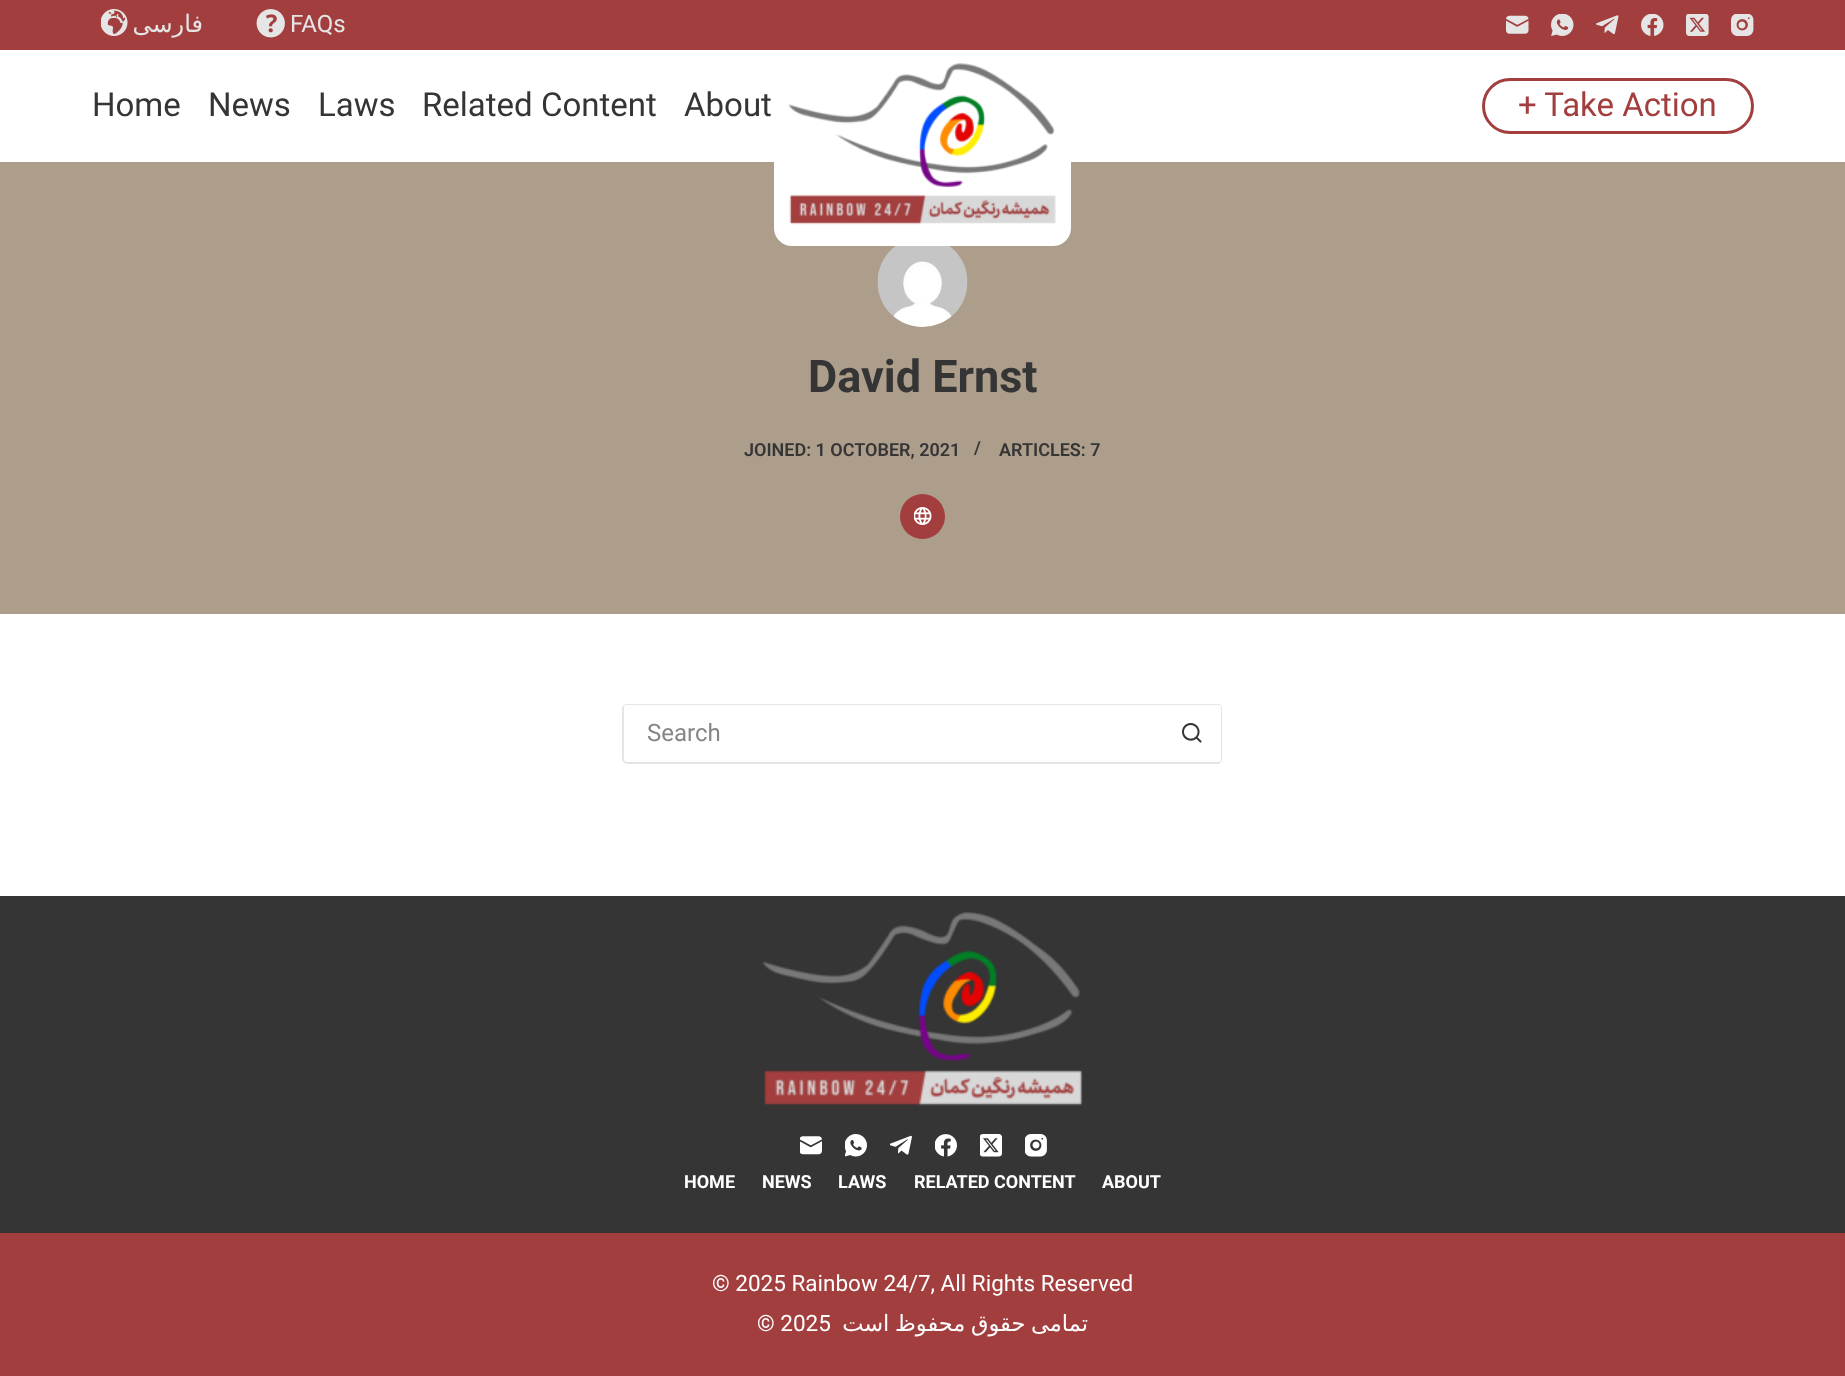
<?xml version="1.0" encoding="UTF-8"?>
<svg xmlns="http://www.w3.org/2000/svg" width="1845" height="1376">
    <rect width="100%" height="100%" fill="#FFFFFF"/>
    <rect x="0" y="0" width="1845" height="50" fill="#A23E3E"/>
    <image x="101" y="9" width="27" height="27" href="img_01.png"/>
    <text x="203" y="32" font-family="DejaVu Sans" font-size="24" direction="rtl" fill="#E5E5E5">فارسی</text>
    <image x="256" y="9" width="29" height="29" href="img_02.png"/>
    <text x="290" y="32" font-family="Roboto" font-size="24" fill="#E5E5E5">FAQs</text>
    <image x="1506" y="15" width="23" height="19" href="img_03.png"/>
    <image x="1551" y="14" width="23" height="22" href="img_04.png"/>
    <image x="1596" y="15" width="23" height="20" href="img_05.png"/>
    <image x="1641" y="14" width="23" height="22" href="img_06.png"/>
    <image x="1686" y="14" width="23" height="22" href="img_07.png"/>
    <image x="1731" y="14" width="23" height="22" href="img_08.png"/>
    <rect x="0" y="162" width="1845" height="452" fill="#AD9E8B"/>
    <rect x="774" y="50" width="297" height="196" rx="18" fill="#FFFFFF"/>
    <image x="788" y="63" width="268" height="162" href="img_09.png"/>
    <text x="92" y="116" font-family="Roboto" font-size="33" fill="#353535">Home</text>
    <text x="208" y="116" font-family="Roboto" font-size="33" fill="#353535">News</text>
    <text x="318" y="116" font-family="Roboto" font-size="33" fill="#353535">Laws</text>
    <text x="422" y="116" font-family="Roboto" font-size="33" fill="#353535">Related Content</text>
    <text x="684" y="116" font-family="Roboto" font-size="33" fill="#353535">About</text>
    <rect x="1483.5" y="79.5" width="269" height="53" rx="26.5" fill="none" stroke="#A23E3E" stroke-width="3"/>
    <text x="1518" y="116" font-family="Roboto" font-size="33" fill="#A23E3E">+ Take Action</text>
    <image x="877" y="246" width="91" height="81" href="img_10.png"/>
    <text x="808" y="392" font-family="Roboto" font-size="45" font-weight="700" fill="#353535">David Ernst</text>
    <text x="744" y="456" font-family="Roboto" font-size="18" font-weight="600" fill="#353535">JOINED: 1 OCTOBER, 2021</text>
    <text x="974" y="454" font-family="Roboto" font-size="18" font-weight="600" fill="#353535">/</text>
    <text x="999" y="456" font-family="Roboto" font-size="18" font-weight="600" fill="#353535">ARTICLES: 7</text>
    <circle cx="922.5" cy="516.5" r="22.5" fill="#A23E3E"/>
    <image x="914" y="507" width="18" height="18" href="img_11.png"/>
    <path d="M 627 704 H 1162 V 764 H 627 C 625 764 622 761 622 759 V 708 C 622 706 625 704 627 704 Z M 627 705 H 1162 V 762 H 627 C 625 762 624 761 624 759 V 708 C 624 706 625 705 627 705 Z" fill="#E5E5E5" fill-rule="evenodd"/>
    <text x="647" y="741" font-family="Roboto" font-size="24" fill="#868686">Search</text>
    <path d="M 1162 704 H 1218 C 1220 704 1222 706 1222 708 V 759 C 1222 761 1220 764 1218 764 H 1162 Z M 1162 705 H 1218 C 1220 705 1221 706 1221 708 V 759 C 1221 761 1220 762 1218 762 H 1162 Z" fill="#E5E5E5" fill-rule="evenodd"/>
    <image x="1182" y="723" width="20" height="20" href="img_12.png"/>
    <rect x="0" y="896" width="1845" height="337" fill="#353535"/>
    <image x="762" y="911" width="321" height="195" href="img_13.png"/>
    <image x="800" y="1136" width="22" height="19" href="img_14.png"/>
    <image x="845" y="1134" width="22" height="23" href="img_15.png"/>
    <image x="890" y="1135" width="22" height="20" href="img_16.png"/>
    <image x="935" y="1134" width="22" height="23" href="img_17.png"/>
    <image x="980" y="1134" width="22" height="23" href="img_18.png"/>
    <image x="1025" y="1134" width="22" height="23" href="img_19.png"/>
    <text x="684" y="1188" font-family="Roboto" font-size="18" font-weight="700" fill="#FFFFFF">HOME</text>
    <text x="762" y="1188" font-family="Roboto" font-size="18" font-weight="700" fill="#FFFFFF">NEWS</text>
    <text x="838" y="1188" font-family="Roboto" font-size="18" font-weight="700" fill="#FFFFFF">LAWS</text>
    <text x="914" y="1188" font-family="Roboto" font-size="18" font-weight="700" fill="#FFFFFF">RELATED CONTENT</text>
    <text x="1102" y="1188" font-family="Roboto" font-size="18" font-weight="700" fill="#FFFFFF">ABOUT</text>
    <rect x="0" y="1233" width="1845" height="143" fill="#A23E3E"/>
    <text x="712" y="1291" font-family="Roboto" font-size="22.5" fill="#FFFFFF">© 2025 Rainbow 24/7, All Rights Reserved</text>
    <text x="757" y="1331" font-family="Roboto" font-size="22.5" fill="#FFFFFF">© 2025</text>
    <text x="1088" y="1331" word-spacing="-1.5" font-family="DejaVu Sans" font-size="22.5" direction="rtl" fill="#FFFFFF">تمامی حقوق محفوظ است</text>
</svg>
